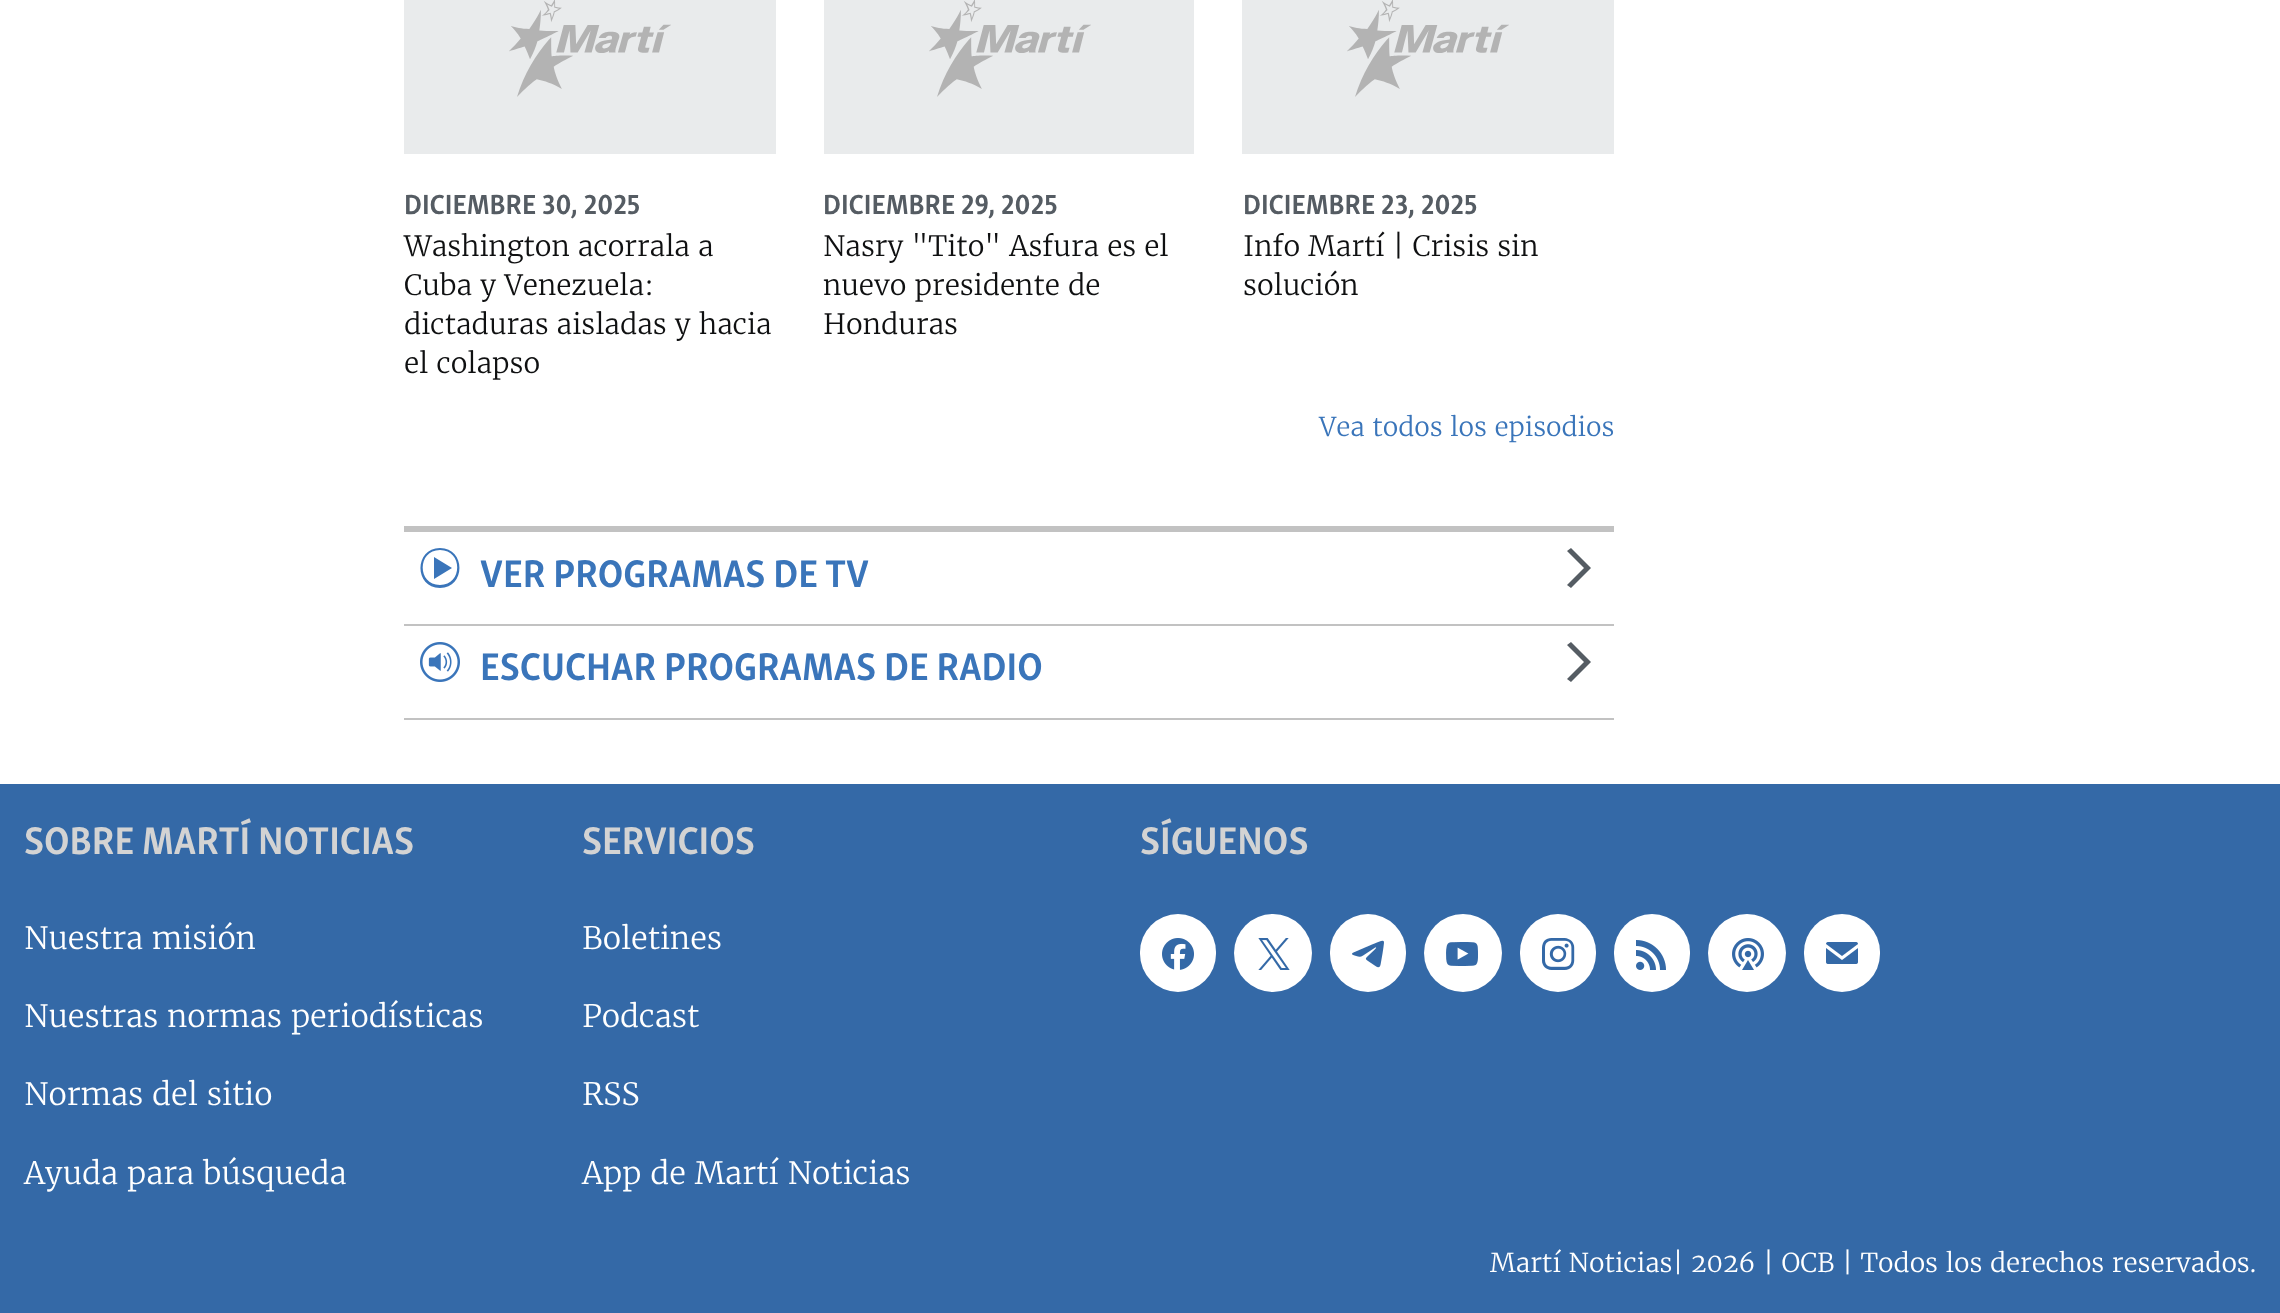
<?xml version="1.0" encoding="UTF-8"?>
<svg xmlns="http://www.w3.org/2000/svg" width="2280" height="1313">
    <rect width="100%" height="100%" fill="#FFFFFF"/>
    <rect x="404" y="0" width="372" height="154" fill="#E9EBEC"/>
    <image x="509" y="0" width="162" height="97" href="img_01.png"/>
    <text x="404" y="214" font-family="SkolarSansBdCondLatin" font-size="28.5" font-weight="700" fill="#555C63">DICIEMBRE 30, 2025</text>
    <text font-family="Merriweather" font-size="28" font-weight="300" fill="#0F1011">
        <tspan x="404" y="256">Washington acorrala a</tspan>
        <tspan x="404" y="295">Cuba y Venezuela:</tspan>
        <tspan x="404" y="334">dictaduras aisladas y hacia</tspan>
        <tspan x="404" y="373">el colapso</tspan>
    </text>
    <rect x="824" y="0" width="370" height="154" fill="#E9EBEC"/>
    <image x="929" y="0" width="162" height="97" href="img_02.png"/>
    <text x="823" y="214" font-family="SkolarSansBdCondLatin" font-size="28.5" font-weight="700" fill="#555C63">DICIEMBRE 29, 2025</text>
    <text font-family="Merriweather" font-size="28" font-weight="300" fill="#0F1011">
        <tspan x="823" y="256">Nasry "Tito" Asfura es el</tspan>
        <tspan x="823" y="295">nuevo presidente de</tspan>
        <tspan x="823" y="334">Honduras</tspan>
    </text>
    <rect x="1242" y="0" width="372" height="154" fill="#E9EBEC"/>
    <image x="1347" y="0" width="162" height="97" href="img_01.png"/>
    <text x="1243" y="214" font-family="SkolarSansBdCondLatin" font-size="28.5" font-weight="700" fill="#555C63">DICIEMBRE 23, 2025</text>
    <text font-family="Merriweather" font-size="28" font-weight="300" fill="#0F1011">
        <tspan x="1243" y="256">Info Martí | Crisis sin</tspan>
        <tspan x="1243" y="295">solución</tspan>
    </text>
    <text x="1319" y="436" font-family="Merriweather" font-size="26" font-weight="300" fill="#3A75BA">Vea todos los episodios</text>
    <rect x="404" y="526" width="1210" height="6" fill="#C2C2C2"/>
    <rect x="404" y="624" width="1210" height="2" fill="#C2C2C2"/>
    <path d="M 434 579 L 452 568 L 434 557 Z M 440 550 C 463 550 463 585 440 585 C 417 585 417 550 440 550 Z M 440 548 C 414 548 414 588 440 588 C 466 588 466 548 440 548 Z" fill="#3A75BA"/>
    <text x="480" y="587" font-family="SkolarSansBdCondLatin" font-size="39.6" font-weight="700" fill="#3A75BA">VER PROGRAMAS DE TV</text>
    <path d="M 1571 588 L 1591 568 L 1571 548 L 1567 551 L 1584 568 L 1567 585 Z" fill="#555C63"/>
    <rect x="404" y="718" width="1210" height="2" fill="#C2C2C2"/>
    <image x="420" y="642" width="40" height="40" href="img_03.png"/>
    <text x="480" y="680" font-family="SkolarSansBdCondLatin" font-size="39.6" font-weight="700" fill="#3A75BA">ESCUCHAR PROGRAMAS DE RADIO</text>
    <path d="M 1571 682 L 1591 662 L 1571 642 L 1567 645 L 1584 662 L 1567 679 Z" fill="#555C63"/>
    <rect x="0" y="784" width="2280" height="529" fill="#3469A7"/>
    <text x="24" y="854" font-family="SkolarSansBdCondLatin" font-size="39.6" font-weight="700" fill="#D3D3D3">SOBRE MARTÍ NOTICIAS</text>
    <text x="24" y="949" font-family="Merriweather" font-size="30.75" font-weight="300" fill="#FFFFFF">Nuestra misión</text>
    <text x="24" y="1027" font-family="Merriweather" font-size="30.75" font-weight="300" fill="#FFFFFF">Nuestras normas periodísticas</text>
    <text x="24" y="1105" font-family="Merriweather" font-size="30.75" font-weight="300" fill="#FFFFFF">Normas del sitio</text>
    <text x="24" y="1184" font-family="Merriweather" font-size="30.75" font-weight="300" fill="#FFFFFF">Ayuda para búsqueda</text>
    <text x="582" y="854" font-family="SkolarSansBdCondLatin" font-size="39.6" font-weight="700" fill="#D3D3D3">SERVICIOS</text>
    <text x="582" y="949" font-family="Merriweather" font-size="30.75" font-weight="300" fill="#FFFFFF">Boletines</text>
    <text x="582" y="1027" font-family="Merriweather" font-size="30.75" font-weight="300" fill="#FFFFFF">Podcast</text>
    <text x="582" y="1105" font-family="Merriweather" font-size="30.75" font-weight="300" fill="#FFFFFF">RSS</text>
    <text x="582" y="1184" font-family="Merriweather" font-size="30.75" font-weight="300" fill="#FFFFFF">App de Martí Noticias</text>
    <text x="1140" y="854" font-family="SkolarSansBdCondLatin" font-size="39.6" font-weight="700" fill="#D3D3D3">SÍGUENOS</text>
    <rect x="1140" y="914" width="76" height="78" rx="38" fill="#FFFFFF"/>
    <image x="1162" y="938" width="32" height="32" href="img_04.png"/>
    <circle cx="1273" cy="953" r="39" fill="#FFFFFF"/>
    <image x="1258" y="938" width="32" height="32" href="img_05.png"/>
    <rect x="1330" y="914" width="76" height="78" rx="38" fill="#FFFFFF"/>
    <image x="1352" y="940" width="32" height="28" href="img_06.png"/>
    <circle cx="1463" cy="953" r="39" fill="#FFFFFF"/>
    <image x="1446" y="942" width="32" height="24" href="img_07.png"/>
    <rect x="1520" y="914" width="76" height="78" rx="38" fill="#FFFFFF"/>
    <image x="1542" y="938" width="33" height="32" href="img_08.png"/>
    <rect x="1614" y="914" width="76" height="78" rx="38" fill="#FFFFFF"/>
    <image x="1636" y="940" width="30" height="30" href="img_09.png"/>
    <circle cx="1747" cy="953" r="39" fill="#FFFFFF"/>
    <image x="1732" y="938" width="32" height="32" href="img_10.png"/>
    <rect x="1804" y="914" width="76" height="78" rx="38" fill="#FFFFFF"/>
    <image x="1826" y="942" width="32" height="22" href="img_11.png"/>
    <text x="1490" y="1272" font-family="Merriweather" font-size="26" font-weight="300" fill="#FFFFFF">Martí Noticias| 2026 | OCB | Todos los derechos reservados.</text>
</svg>
